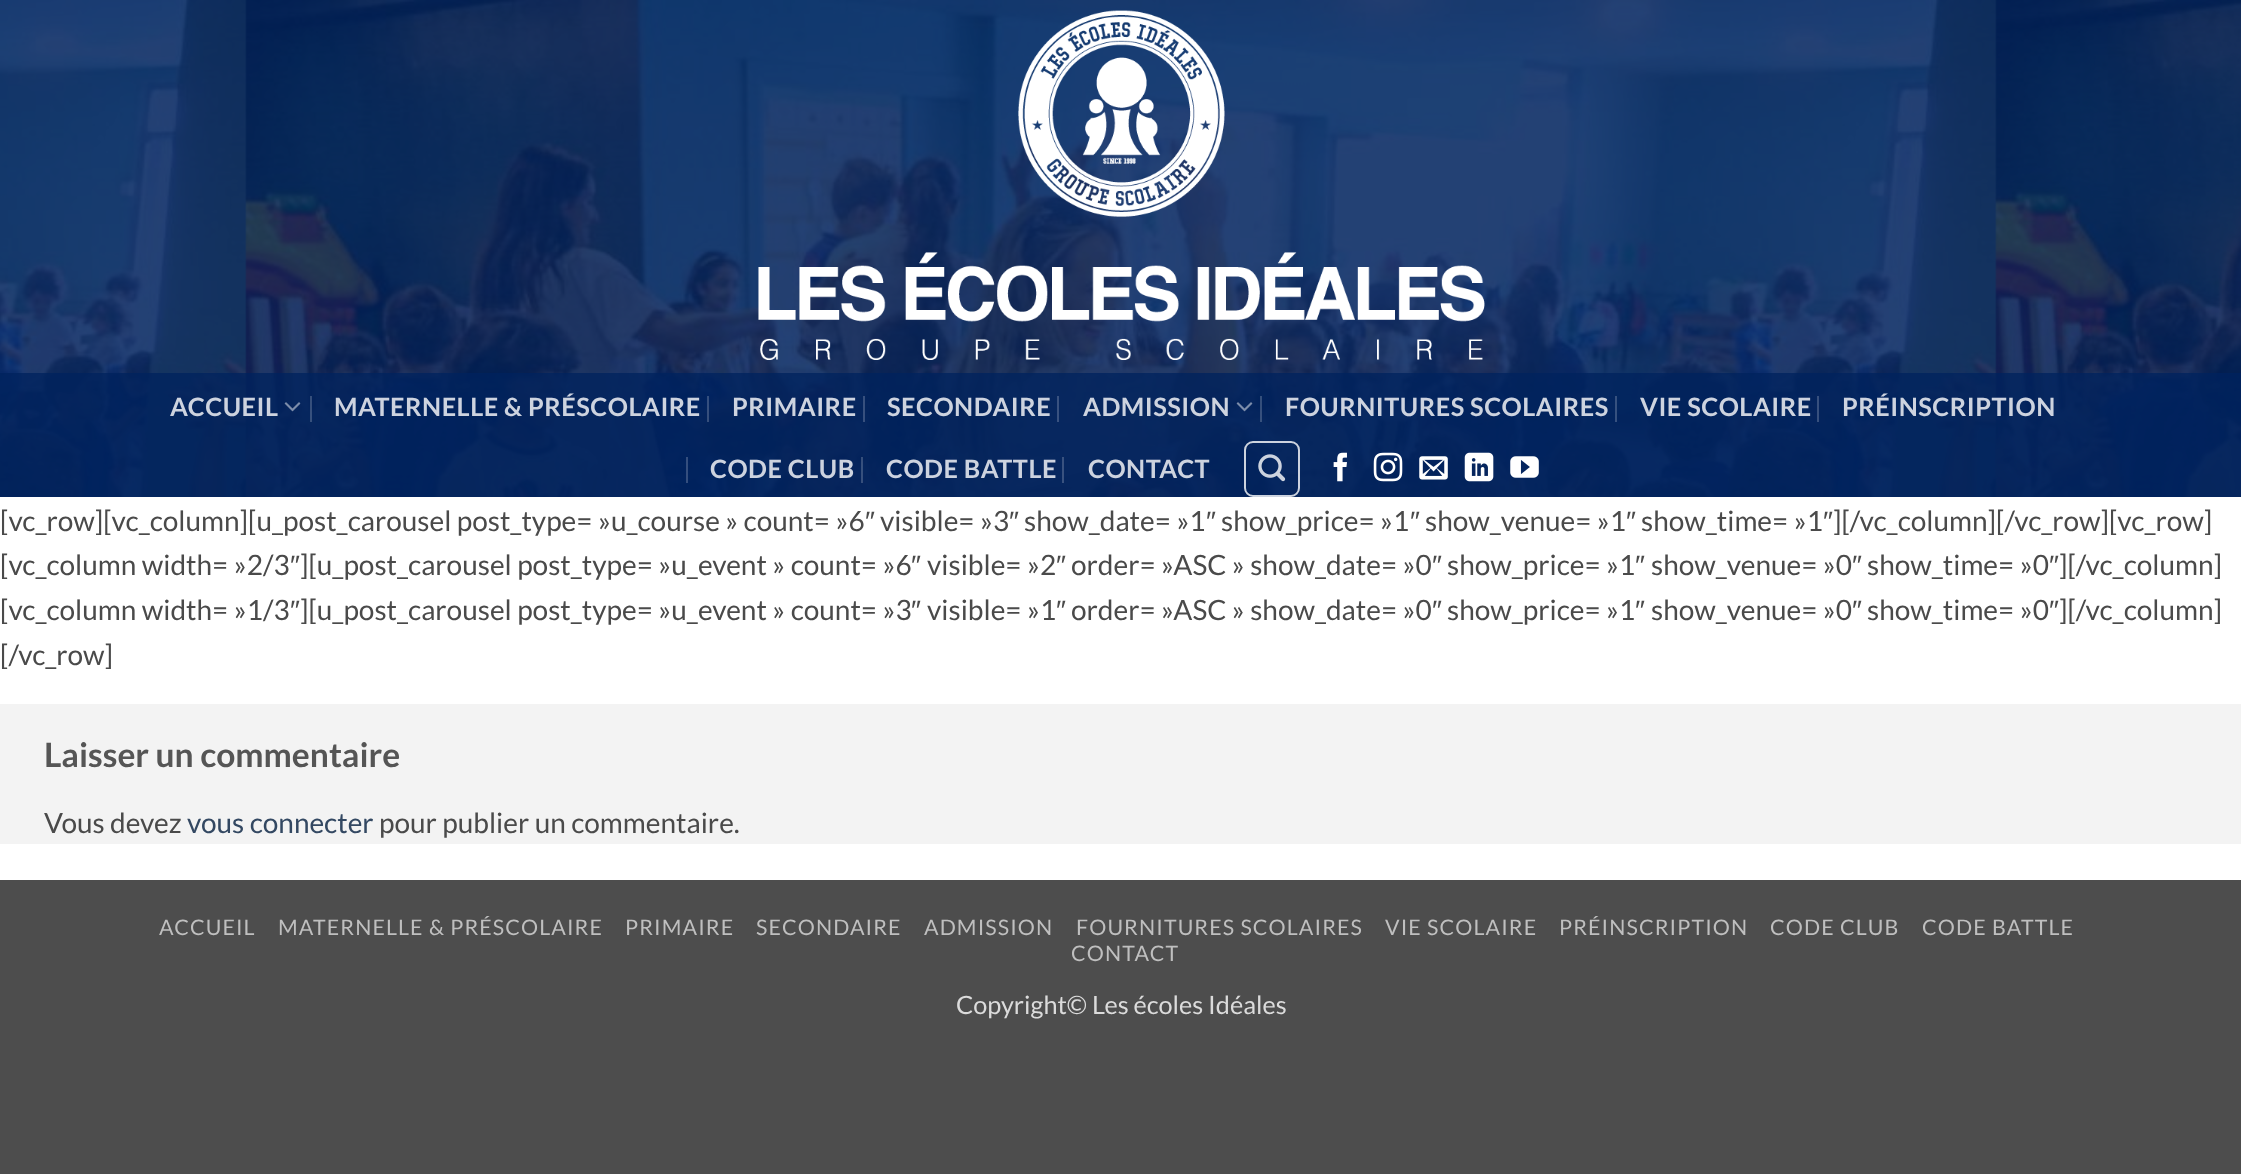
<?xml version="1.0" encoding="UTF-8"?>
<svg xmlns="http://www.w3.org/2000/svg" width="2241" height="1174">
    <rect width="100%" height="100%" fill="#4D4D4D"/>
    <rect x="0" y="497" width="2241" height="383" fill="#FFFFFF"/>
    <image x="0" y="0" width="2241" height="497" href="img_01.png"/>
    <image x="758" y="10" width="727" height="350" href="img_02.png"/>
    <rect x="0" y="373" width="2241" height="124" fill="#00225E" fill-opacity="0.78"/>
    <text x="170" y="416" font-family="Lato" font-size="25.25" font-weight="700" letter-spacing="0.5" fill="#CDD3DF">ACCUEIL</text>
    <image x="284" y="402" width="17" height="10" href="img_03.png"/>
    <rect x="310" y="396" width="2" height="26" fill="#FFFFFF" fill-opacity="0.2"/>
    <text x="334" y="416" font-family="Lato" font-size="25.25" font-weight="700" letter-spacing="0.5" fill="#CDD3DF">MATERNELLE &amp; PRÉSCOLAIRE</text>
    <rect x="707" y="396" width="2" height="26" fill="#FFFFFF" fill-opacity="0.2"/>
    <text x="732" y="416" font-family="Lato" font-size="25.25" font-weight="700" letter-spacing="0.5" fill="#CDD3DF">PRIMAIRE</text>
    <rect x="863" y="396" width="2" height="26" fill="#37507E"/>
    <text x="887" y="416" font-family="Lato" font-size="25.25" font-weight="700" letter-spacing="0.5" fill="#CDD3DF">SECONDAIRE</text>
    <rect x="1057" y="396" width="2" height="26" fill="#395280"/>
    <text x="1083" y="416" font-family="Lato" font-size="25.25" font-weight="700" letter-spacing="0.5" fill="#CDD3DF">ADMISSION</text>
    <image x="1236" y="402" width="17" height="10" href="img_04.png"/>
    <rect x="1260" y="396" width="2" height="26" fill="#FFFFFF" fill-opacity="0.2"/>
    <text x="1285" y="416" font-family="Lato" font-size="25.25" font-weight="700" letter-spacing="0.5" fill="#CDD3DF">FOURNITURES SCOLAIRES</text>
    <rect x="1615" y="396" width="2" height="26" fill="#36517F"/>
    <text x="1640" y="416" font-family="Lato" font-size="25.25" font-weight="700" letter-spacing="0.5" fill="#CDD3DF">VIE SCOLAIRE</text>
    <rect x="1817" y="396" width="2" height="26" fill="#37507E"/>
    <text x="1842" y="416" font-family="Lato" font-size="25.25" font-weight="700" letter-spacing="0.5" fill="#CDD3DF">PRÉINSCRIPTION</text>
    <rect x="686" y="457" width="2" height="26" fill="#344E7E"/>
    <text x="710" y="478" font-family="Lato" font-size="25.25" font-weight="700" letter-spacing="0.5" fill="#CDD3DF">CODE CLUB</text>
    <rect x="861" y="457" width="2" height="26" fill="#FFFFFF" fill-opacity="0.2"/>
    <text x="886" y="478" font-family="Lato" font-size="25.25" font-weight="700" letter-spacing="0.5" fill="#CDD3DF">CODE BATTLE</text>
    <rect x="1062" y="457" width="2" height="26" fill="#39527F"/>
    <text x="1088" y="478" font-family="Lato" font-size="25.25" font-weight="700" letter-spacing="0.5" fill="#CDD3DF">CONTACT</text>
    <rect x="1245" y="442" width="54" height="54" rx="8" fill="none" stroke="#FFFFFF" stroke-opacity="0.8" stroke-width="2"/>
    <image x="1258" y="454" width="28" height="28" href="img_05.png"/>
    <image x="1333" y="452" width="14" height="30" href="img_06.png"/>
    <image x="1373" y="452" width="30" height="30" href="img_07.png"/>
    <image x="1419" y="456" width="29" height="24" href="img_08.png"/>
    <image x="1464" y="452" width="30" height="30" href="img_09.png"/>
    <image x="1510" y="456" width="29" height="22" href="img_10.png"/>
    <text x="0" y="531" font-family="Lato" font-size="28" fill="#4A4A4A">[vc_row][vc_column][u_post_carousel post_type= »u_course » count= »6</text>
    <text x="865" y="531" font-family="Liberation Sans" font-size="28" fill="#4A4A4A">″</text>
    <text x="880" y="531" font-family="Lato" font-size="28" fill="#4A4A4A">visible= »3</text>
    <text x="1009" y="531" font-family="Liberation Sans" font-size="28" fill="#4A4A4A">″</text>
    <text x="1024" y="531" font-family="Lato" font-size="28" fill="#4A4A4A">show_date= »1</text>
    <text x="1206" y="531" font-family="Liberation Sans" font-size="28" fill="#4A4A4A">″</text>
    <text x="1221" y="531" font-family="Lato" font-size="28" fill="#4A4A4A">show_price= »1</text>
    <text x="1410" y="531" font-family="Liberation Sans" font-size="28" fill="#4A4A4A">″</text>
    <text x="1425" y="531" font-family="Lato" font-size="28" fill="#4A4A4A">show_venue= »1</text>
    <text x="1626" y="531" font-family="Liberation Sans" font-size="28" fill="#4A4A4A">″</text>
    <text x="1641" y="531" font-family="Lato" font-size="28" fill="#4A4A4A">show_time= »1</text>
    <text x="1823" y="531" font-family="Liberation Sans" font-size="28" fill="#4A4A4A">″</text>
    <text x="1833" y="531" font-family="Lato" font-size="28" fill="#4A4A4A">][/vc_column][/vc_row][vc_row]</text>
    <text x="0" y="575" font-family="Lato" font-size="28" fill="#4A4A4A">[vc_column width= »2/3</text>
    <text x="290" y="575" font-family="Liberation Sans" font-size="28" fill="#4A4A4A">″</text>
    <text x="300" y="575" font-family="Lato" font-size="28" fill="#4A4A4A">][u_post_carousel post_type= »u_event » count= »6</text>
    <text x="911" y="575" font-family="Liberation Sans" font-size="28" fill="#4A4A4A">″</text>
    <text x="927" y="575" font-family="Lato" font-size="28" fill="#4A4A4A">visible= »2</text>
    <text x="1056" y="575" font-family="Liberation Sans" font-size="28" fill="#4A4A4A">″</text>
    <text x="1071" y="575" font-family="Lato" font-size="28" fill="#4A4A4A">order= »ASC » show_date= »0</text>
    <text x="1432" y="575" font-family="Liberation Sans" font-size="28" fill="#4A4A4A">″</text>
    <text x="1447" y="575" font-family="Lato" font-size="28" fill="#4A4A4A">show_price= »1</text>
    <text x="1635" y="575" font-family="Liberation Sans" font-size="28" fill="#4A4A4A">″</text>
    <text x="1651" y="575" font-family="Lato" font-size="28" fill="#4A4A4A">show_venue= »0</text>
    <text x="1852" y="575" font-family="Liberation Sans" font-size="28" fill="#4A4A4A">″</text>
    <text x="1867" y="575" font-family="Lato" font-size="28" fill="#4A4A4A">show_time= »0</text>
    <text x="2049" y="575" font-family="Liberation Sans" font-size="28" fill="#4A4A4A">″</text>
    <text x="2059" y="575" font-family="Lato" font-size="28" fill="#4A4A4A">][/vc_column]</text>
    <text x="0" y="620" font-family="Lato" font-size="28" fill="#4A4A4A">[vc_column width= »1/3</text>
    <text x="290" y="620" font-family="Liberation Sans" font-size="28" fill="#4A4A4A">″</text>
    <text x="300" y="620" font-family="Lato" font-size="28" fill="#4A4A4A">][u_post_carousel post_type= »u_event » count= »3</text>
    <text x="911" y="620" font-family="Liberation Sans" font-size="28" fill="#4A4A4A">″</text>
    <text x="927" y="620" font-family="Lato" font-size="28" fill="#4A4A4A">visible= »1</text>
    <text x="1056" y="620" font-family="Liberation Sans" font-size="28" fill="#4A4A4A">″</text>
    <text x="1071" y="620" font-family="Lato" font-size="28" fill="#4A4A4A">order= »ASC » show_date= »0</text>
    <text x="1432" y="620" font-family="Liberation Sans" font-size="28" fill="#4A4A4A">″</text>
    <text x="1447" y="620" font-family="Lato" font-size="28" fill="#4A4A4A">show_price= »1</text>
    <text x="1635" y="620" font-family="Liberation Sans" font-size="28" fill="#4A4A4A">″</text>
    <text x="1651" y="620" font-family="Lato" font-size="28" fill="#4A4A4A">show_venue= »0</text>
    <text x="1852" y="620" font-family="Liberation Sans" font-size="28" fill="#4A4A4A">″</text>
    <text x="1867" y="620" font-family="Lato" font-size="28" fill="#4A4A4A">show_time= »0</text>
    <text x="2049" y="620" font-family="Liberation Sans" font-size="28" fill="#4A4A4A">″</text>
    <text x="2059" y="620" font-family="Lato" font-size="28" fill="#4A4A4A">][/vc_column]</text>
    <text x="0" y="665" font-family="Lato" font-size="28" fill="#4A4A4A">[/vc_row]</text>
    <rect x="0" y="704" width="2241" height="140" fill="#F3F3F3"/>
    <text x="44" y="767" font-family="Lato" font-size="33.6" font-weight="700" fill="#555555">Laisser un commentaire</text>
    <text x="44" y="833" font-family="Lato" font-size="28" fill="#4A4A4A">Vous devez</text>
    <text x="187" y="833" font-family="Lato" font-size="28" fill="#334862">vous connecter</text>
    <text x="379" y="833" font-family="Lato" font-size="28" fill="#4A4A4A">pour publier un commentaire.</text>
    <text x="159" y="935" font-family="Lato" font-size="21.4" letter-spacing="1.1" fill="#BFBFBF">ACCUEIL</text>
    <text x="278" y="935" font-family="Lato" font-size="21.4" letter-spacing="1.1" fill="#BFBFBF">MATERNELLE &amp; PRÉSCOLAIRE</text>
    <text x="625" y="935" font-family="Lato" font-size="21.4" letter-spacing="1.1" fill="#BFBFBF">PRIMAIRE</text>
    <text x="756" y="935" font-family="Lato" font-size="21.4" letter-spacing="1.1" fill="#BFBFBF">SECONDAIRE</text>
    <text x="924" y="935" font-family="Lato" font-size="21.4" letter-spacing="1.1" fill="#BFBFBF">ADMISSION</text>
    <text x="1076" y="935" font-family="Lato" font-size="21.4" letter-spacing="1.1" fill="#BFBFBF">FOURNITURES SCOLAIRES</text>
    <text x="1385" y="935" font-family="Lato" font-size="21.4" letter-spacing="1.1" fill="#BFBFBF">VIE SCOLAIRE</text>
    <text x="1559" y="935" font-family="Lato" font-size="21.4" letter-spacing="1.1" fill="#BFBFBF">PRÉINSCRIPTION</text>
    <text x="1770" y="935" font-family="Lato" font-size="21.4" letter-spacing="1.1" fill="#BFBFBF">CODE CLUB</text>
    <text x="1922" y="935" font-family="Lato" font-size="21.4" letter-spacing="1.1" fill="#BFBFBF">CODE BATTLE</text>
    <text x="1071" y="961" font-family="Lato" font-size="21.4" letter-spacing="1.1" fill="#BFBFBF">CONTACT</text>
    <text x="956" y="1014" font-family="Lato" font-size="25.25" fill="#DBDBDB">Copyright© Les écoles Idéales</text>
</svg>
